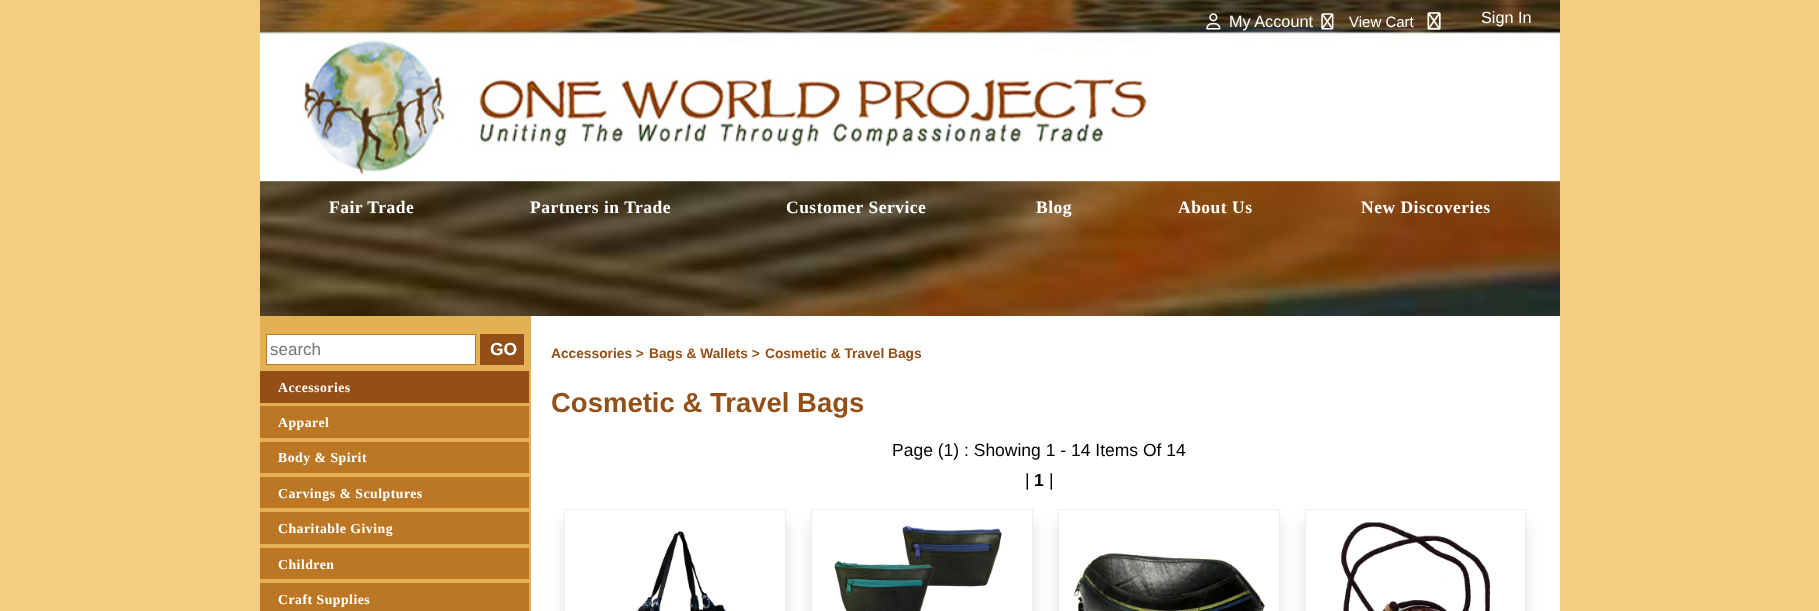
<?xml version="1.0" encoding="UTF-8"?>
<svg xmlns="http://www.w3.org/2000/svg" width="1819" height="611">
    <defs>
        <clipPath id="clip1"><path d="M 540 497 H 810 V 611 H 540 Z M 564 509 H 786 V 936 H 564 Z" clip-rule="evenodd"/></clipPath>
        <filter id="blur1" x="-50%" y="-200%" width="200%" height="500%"><feGaussianBlur stdDeviation="7.5"/></filter>
        <clipPath id="clip2"><path d="M 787 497 H 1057 V 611 H 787 Z M 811 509 H 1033 V 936 H 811 Z" clip-rule="evenodd"/></clipPath>
        <clipPath id="clip3"><path d="M 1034 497 H 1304 V 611 H 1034 Z M 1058 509 H 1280 V 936 H 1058 Z" clip-rule="evenodd"/></clipPath>
        <clipPath id="clip4"><path d="M 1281 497 H 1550 V 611 H 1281 Z M 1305 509 H 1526 V 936 H 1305 Z" clip-rule="evenodd"/></clipPath>
    </defs>
    <rect width="100%" height="100%" fill="#F4CD82"/>
    <image x="260" y="0" width="1300" height="182" href="img_01.png"/>
    <image x="1206" y="13" width="15" height="17" href="img_02.png"/>
    <text x="1229" y="27" font-family="Liberation Sans" font-size="16.25" fill="#FFFFFF">My Account</text>
    <image x="1321" y="13" width="13" height="17" href="img_03.png"/>
    <text x="1349" y="27" font-family="Liberation Sans" font-size="15" fill="#FFFFFF">View Cart</text>
    <image x="1427" y="12" width="14" height="18" href="img_04.png"/>
    <text x="1481" y="23" font-family="Liberation Sans" font-size="16.25" fill="#FFFFFF">Sign In</text>
    <image x="260" y="181" width="1300" height="135" href="img_05.png"/>
    <text x="329" y="213" font-family="Liberation Serif" font-size="17.5" font-weight="700" letter-spacing="0.5" fill="#FFFFFF">Fair Trade</text>
    <text x="530" y="213" font-family="Liberation Serif" font-size="17.5" font-weight="700" letter-spacing="0.5" fill="#FFFFFF">Partners in Trade</text>
    <text x="786" y="213" font-family="Liberation Serif" font-size="17.5" font-weight="700" letter-spacing="0.5" fill="#FFFFFF">Customer Service</text>
    <text x="1036" y="213" font-family="Liberation Serif" font-size="17.5" font-weight="700" letter-spacing="0.5" fill="#FFFFFF">Blog</text>
    <text x="1178" y="213" font-family="Liberation Serif" font-size="17.5" font-weight="700" letter-spacing="0.5" fill="#FFFFFF">About Us</text>
    <text x="1361" y="213" font-family="Liberation Serif" font-size="17.5" font-weight="700" letter-spacing="0.5" fill="#FFFFFF">New Discoveries</text>
    <rect x="531" y="316" width="1029" height="295" fill="#FFFFFF"/>
    <rect x="260" y="316" width="271" height="295" fill="#E2B154"/>
    <rect x="266.5" y="334.5" width="209" height="30" fill="#FFFFFF" stroke="#BB7724"/>
    <text x="270" y="355" font-family="Liberation Sans" font-size="17" fill="#757575">search</text>
    <rect x="480" y="334" width="44" height="31" fill="#944F16"/>
    <text x="490" y="355" font-family="Liberation Sans" font-size="17.5" font-weight="700" fill="#FFFFFF">GO</text>
    <rect x="260" y="406" width="269" height="205" fill="#BB7724"/>
    <rect x="260" y="371" width="269" height="32" fill="#944F16"/>
    <text x="278" y="392" font-family="Liberation Serif" font-size="13.75" font-weight="700" letter-spacing="0.5" fill="#FFFFFF">Accessories</text>
    <rect x="260" y="438" width="269" height="4" fill="#E2B154"/>
    <text x="278" y="427" font-family="Liberation Serif" font-size="13.75" font-weight="700" letter-spacing="0.5" fill="#FFFFFF">Apparel</text>
    <rect x="260" y="473" width="269" height="4" fill="#E2B154"/>
    <text x="278" y="462" font-family="Liberation Serif" font-size="13.75" font-weight="700" letter-spacing="0.5" fill="#FFFFFF">Body &amp; Spirit</text>
    <rect x="260" y="508" width="269" height="4" fill="#E2B154"/>
    <text x="278" y="498" font-family="Liberation Serif" font-size="13.75" font-weight="700" letter-spacing="0.5" fill="#FFFFFF">Carvings &amp; Sculptures</text>
    <rect x="260" y="544" width="269" height="4" fill="#E2B154"/>
    <text x="278" y="533" font-family="Liberation Serif" font-size="13.75" font-weight="700" letter-spacing="0.5" fill="#FFFFFF">Charitable Giving</text>
    <rect x="260" y="579" width="269" height="4" fill="#E2B154"/>
    <text x="278" y="569" font-family="Liberation Serif" font-size="13.75" font-weight="700" letter-spacing="0.5" fill="#FFFFFF">Children</text>
    <text x="278" y="604" font-family="Liberation Serif" font-size="13.75" font-weight="700" letter-spacing="0.5" fill="#FFFFFF">Craft Supplies</text>
    <text x="551" y="358" font-family="Liberation Sans" font-size="13.75" font-weight="700" fill="#944F16">Accessories &gt;</text>
    <text x="649" y="358" font-family="Liberation Sans" font-size="13.75" font-weight="700" fill="#944F16">Bags &amp; Wallets &gt;</text>
    <text x="765" y="358" font-family="Liberation Sans" font-size="13.75" font-weight="700" fill="#944F16">Cosmetic &amp; Travel Bags</text>
    <text x="551" y="412" font-family="Liberation Sans" font-size="27.5" font-weight="700" fill="#944F16">Cosmetic &amp; Travel Bags</text>
    <text x="892" y="456" font-family="Liberation Sans" font-size="17.5" fill="#000000">Page (1) : Showing 1 - 14 Items Of 14</text>
    <text x="1025" y="486" font-family="Liberation Sans" font-size="17.5" fill="#000000">|</text>
    <text x="1034" y="486" font-family="Liberation Sans" font-size="17.5" font-weight="700" fill="#000000">1</text>
    <text x="1049" y="486" font-family="Liberation Sans" font-size="17.5" fill="#000000">|</text>
    <g clip-path="url(#clip1)">
        <rect x="564" y="521" width="222" height="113" fill="#000000" fill-opacity="0.12" filter="url(#blur1)"/>
    </g>
    <rect x="564.5" y="509.5" width="221" height="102" fill="none" stroke="#EEEEEE"/>
    <image x="637" y="531" width="89" height="80" href="img_06.png"/>
    <g clip-path="url(#clip2)">
        <rect x="811" y="521" width="222" height="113" fill="#000000" fill-opacity="0.12" filter="url(#blur1)"/>
    </g>
    <rect x="811.5" y="509.5" width="221" height="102" fill="none" stroke="#EEEEEE"/>
    <image x="834" y="525" width="168" height="86" href="img_07.png"/>
    <g clip-path="url(#clip3)">
        <rect x="1058" y="521" width="222" height="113" fill="#000000" fill-opacity="0.12" filter="url(#blur1)"/>
    </g>
    <rect x="1058.5" y="509.5" width="221" height="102" fill="none" stroke="#EEEEEE"/>
    <image x="1073" y="553" width="192" height="58" href="img_08.png"/>
    <g clip-path="url(#clip4)">
        <rect x="1305" y="521" width="221" height="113" fill="#000000" fill-opacity="0.12" filter="url(#blur1)"/>
    </g>
    <rect x="1305.5" y="509.5" width="220" height="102" fill="none" stroke="#EEEEEE"/>
    <image x="1340" y="522" width="151" height="89" href="img_09.png"/>
</svg>
